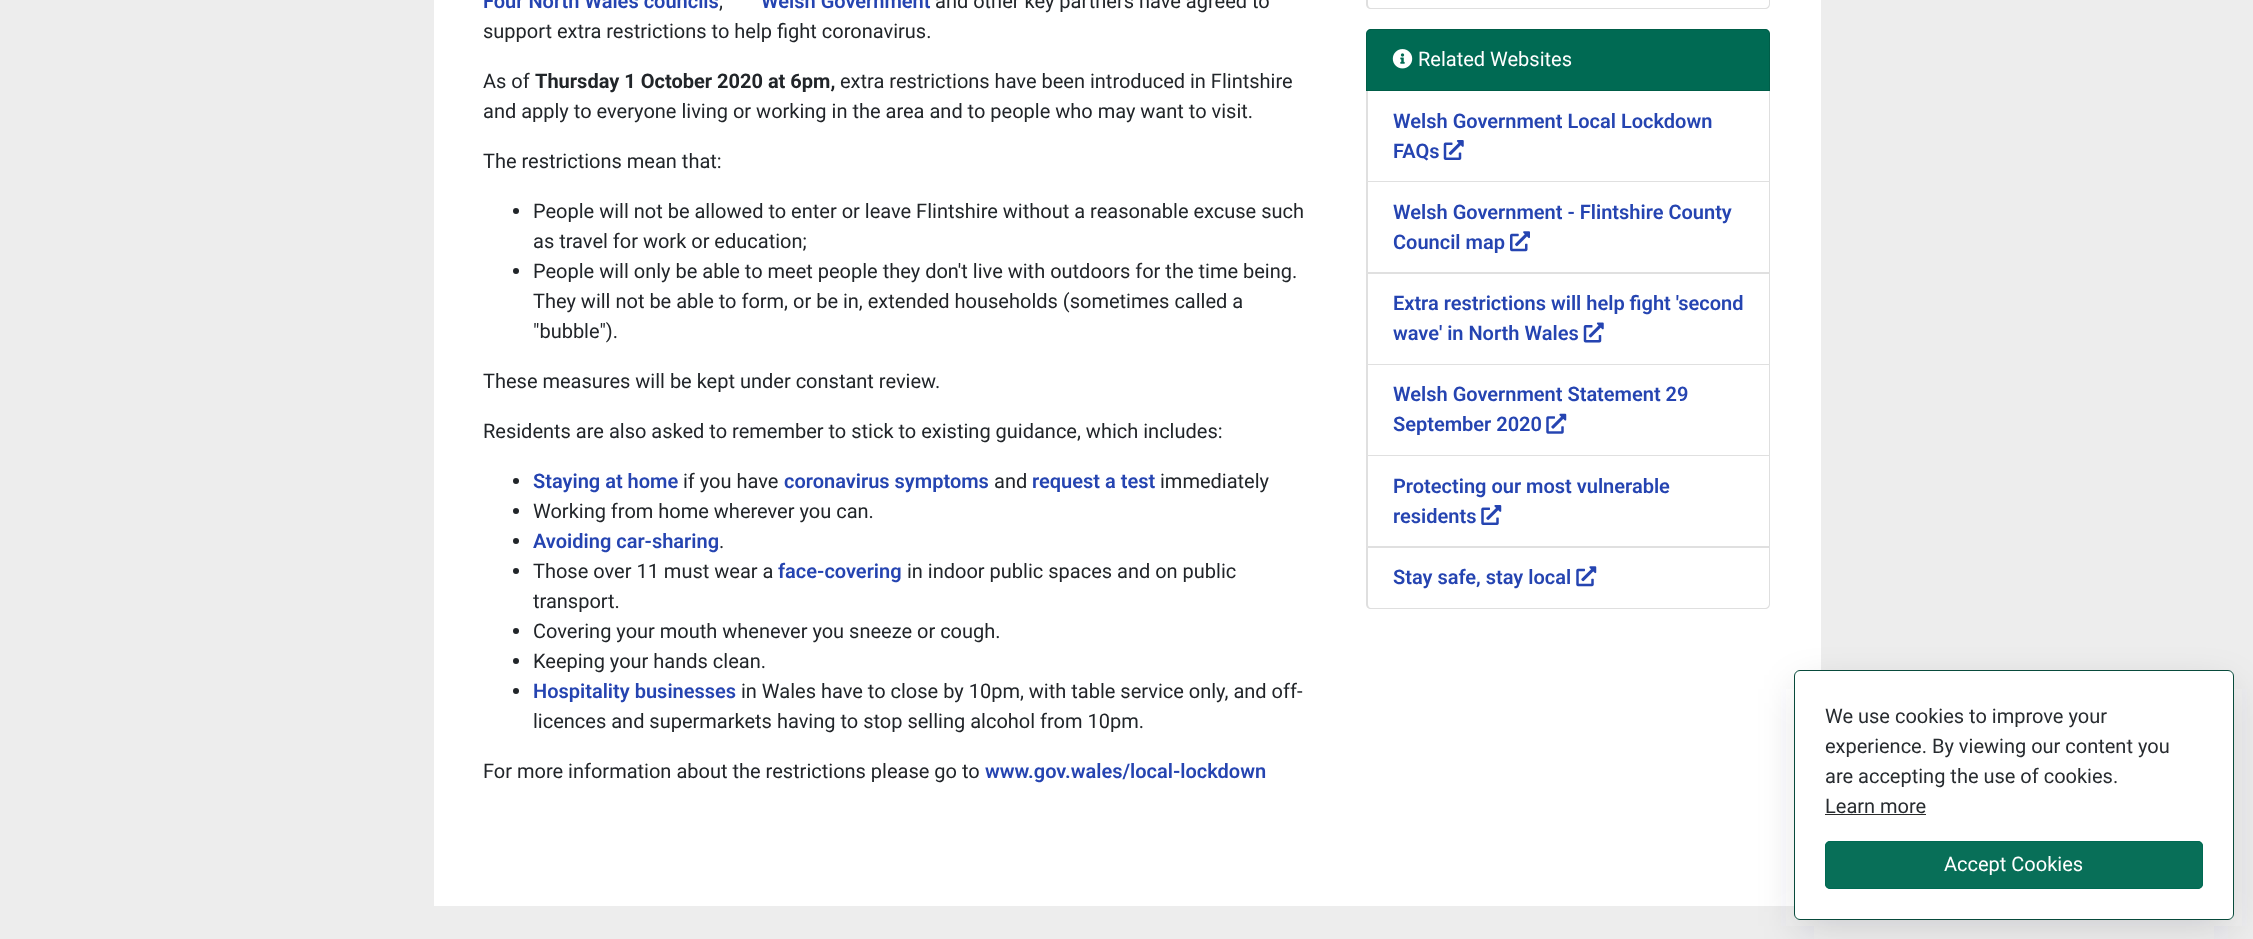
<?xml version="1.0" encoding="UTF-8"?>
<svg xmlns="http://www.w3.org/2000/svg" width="2253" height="939">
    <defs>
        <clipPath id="clip1"><path d="M 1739 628 H 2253 V 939 H 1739 Z M 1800 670 H 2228 C 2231.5 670 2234 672.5 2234 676 V 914 C 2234 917.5 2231.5 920 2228 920 H 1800 C 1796.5 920 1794 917.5 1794 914 V 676 C 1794 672.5 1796.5 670 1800 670 Z" clip-rule="evenodd"/></clipPath>
        <filter id="blur1" x="-50%" y="-200%" width="200%" height="500%"><feGaussianBlur stdDeviation="20"/></filter>
    </defs>
    <rect width="100%" height="100%" fill="#EDEDED"/>
    <rect x="434" y="0" width="1387" height="906" fill="#FFFFFF"/>
    <text x="483" y="8" font-family="Roboto" font-size="20" font-weight="600" fill="#2544B1">Four North Wales councils</text>
    <text x="719" y="8" font-family="Roboto" font-size="20" fill="#212529">,</text>
    <text x="761" y="8" font-family="Roboto" font-size="20" font-weight="600" fill="#2544B1">Welsh Government</text>
    <text x="935" y="8" font-family="Roboto" font-size="20" fill="#212529">and other key partners have agreed to</text>
    <text x="483" y="38" font-family="Roboto" font-size="20" fill="#212529">support extra restrictions to help fight coronavirus.</text>
    <text x="483" y="88" font-family="Roboto" font-size="20" fill="#212529">As of</text>
    <text x="535" y="88" font-family="Roboto" font-size="20" font-weight="700" fill="#212529">Thursday 1 October 2020 at 6pm,</text>
    <text x="840" y="88" font-family="Roboto" font-size="20" fill="#212529">extra restrictions have been introduced in Flintshire</text>
    <text x="483" y="118" font-family="Roboto" font-size="20" fill="#212529">and apply to everyone living or working in the area and to people who may want to visit.</text>
    <text x="483" y="168" font-family="Roboto" font-size="20" fill="#212529">The restrictions mean that:</text>
    <circle cx="516" cy="211" r="3" fill="#212529"/>
    <text font-family="Roboto" font-size="20" fill="#212529">
        <tspan x="533" y="218">People will not be allowed to enter or leave Flintshire without a reasonable excuse such</tspan>
        <tspan x="533" y="248">as travel for work or education;</tspan>
    </text>
    <circle cx="516" cy="271" r="3" fill="#212529"/>
    <text font-family="Roboto" font-size="20" fill="#212529">
        <tspan x="533" y="278">People will only be able to meet people they don't live with outdoors for the time being.</tspan>
        <tspan x="533" y="308">They will not be able to form, or be in, extended households (sometimes called a</tspan>
        <tspan x="533" y="338">"bubble").</tspan>
    </text>
    <text x="483" y="388" font-family="Roboto" font-size="20" fill="#212529">These measures will be kept under constant review.</text>
    <text x="483" y="438" font-family="Roboto" font-size="20" fill="#212529">Residents are also asked to remember to stick to existing guidance, which includes:</text>
    <circle cx="516" cy="481" r="3" fill="#212529"/>
    <text x="533" y="488" font-family="Roboto" font-size="20" font-weight="600" fill="#2544B1">Staying at home</text>
    <text x="683" y="488" font-family="Roboto" font-size="20" fill="#212529">if you have</text>
    <text x="784" y="488" font-family="Roboto" font-size="20" font-weight="600" fill="#2544B1">coronavirus symptoms</text>
    <text x="994" y="488" font-family="Roboto" font-size="20" fill="#212529">and</text>
    <text x="1032" y="488" font-family="Roboto" font-size="20" font-weight="600" fill="#2544B1">request a test</text>
    <text x="1160" y="488" font-family="Roboto" font-size="20" fill="#212529">immediately</text>
    <circle cx="516" cy="511" r="3" fill="#212529"/>
    <text x="533" y="518" font-family="Roboto" font-size="20" fill="#212529">Working from home wherever you can.</text>
    <circle cx="516" cy="541" r="3" fill="#212529"/>
    <text x="533" y="548" font-family="Roboto" font-size="20" font-weight="600" fill="#2544B1">Avoiding car-sharing</text>
    <text x="719" y="548" font-family="Roboto" font-size="20" fill="#212529">.</text>
    <circle cx="516" cy="571" r="3" fill="#212529"/>
    <text x="533" y="578" font-family="Roboto" font-size="20" fill="#212529">Those over 11 must wear a</text>
    <text x="778" y="578" font-family="Roboto" font-size="20" font-weight="600" fill="#2544B1">face-covering</text>
    <text x="907" y="578" font-family="Roboto" font-size="20" fill="#212529">in indoor public spaces and on public</text>
    <text x="533" y="608" font-family="Roboto" font-size="20" fill="#212529">transport.</text>
    <circle cx="516" cy="631" r="3" fill="#212529"/>
    <text x="533" y="638" font-family="Roboto" font-size="20" fill="#212529">Covering your mouth whenever you sneeze or cough.</text>
    <circle cx="516" cy="661" r="3" fill="#212529"/>
    <text x="533" y="668" font-family="Roboto" font-size="20" fill="#212529">Keeping your hands clean.</text>
    <circle cx="516" cy="691" r="3" fill="#212529"/>
    <text x="533" y="698" font-family="Roboto" font-size="20" font-weight="600" fill="#2544B1">Hospitality businesses</text>
    <text x="741" y="698" font-family="Roboto" font-size="20" fill="#212529">in Wales have to close by 10pm, with table service only, and off-</text>
    <text x="533" y="728" font-family="Roboto" font-size="20" fill="#212529">licences and supermarkets having to stop selling alcohol from 10pm.</text>
    <text x="483" y="778" font-family="Roboto" font-size="20" fill="#212529">For more information about the restrictions please go to</text>
    <text x="985" y="778" font-family="Roboto" font-size="20" font-weight="600" fill="#2544B1">www.gov.wales/local-lockdown</text>
    <path d="M 1366 -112 H 1770 V 4 C 1770 7 1768 9 1765 9 H 1371 C 1368 9 1366 7 1366 4 Z M 1368 -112 H 1769 V 4 C 1769 6 1767 8 1765 8 H 1371 C 1369 8 1368 6 1368 4 Z" fill="#DFDFDF" fill-rule="evenodd"/>
    <path d="M 1371 29 H 1765 C 1768 29 1770 31 1770 34 V 91 H 1366 V 34 C 1366 31 1368 29 1371 29 Z" fill="#006A53"/>
    <path d="M 1371 29.5 H 1765 C 1767.5 29.5 1769.5 31.5 1769.5 34 V 90.5 H 1366.5 V 34 C 1366.5 31.5 1368.5 29.5 1371 29.5 Z" fill="none" stroke="#000000" stroke-opacity="0.12"/>
    <image x="1392" y="49" width="21" height="20" href="img_01.png"/>
    <text x="1418" y="66" font-family="Roboto" font-size="20" fill="#FFFFFF">Related Websites</text>
    <path d="M 1770 91 V 182 L 1769 181 V 91 Z" fill="#DFDFDF"/>
    <path d="M 1770 182 H 1366 L 1368 181 H 1769 Z" fill="#000000" fill-opacity="0.12"/>
    <path d="M 1366 182 V 91 H 1368 V 181 Z" fill="#000000" fill-opacity="0.12"/>
    <text font-family="Roboto" font-size="20" font-weight="600" fill="#2544B1">
        <tspan x="1393" y="128">Welsh Government Local Lockdown</tspan>
        <tspan x="1393" y="158">FAQs</tspan>
    </text>
    <image x="1443" y="140" width="21" height="20" href="img_02.png"/>
    <path d="M 1770 182 V 274 L 1769 272 V 182 Z" fill="#DFDFDF"/>
    <path d="M 1770 274 H 1366 L 1368 272 H 1769 Z" fill="#000000" fill-opacity="0.12"/>
    <path d="M 1366 274 V 182 H 1368 V 272 Z" fill="#000000" fill-opacity="0.12"/>
    <text font-family="Roboto" font-size="20" font-weight="600" fill="#2544B1">
        <tspan x="1393" y="219">Welsh Government - Flintshire County</tspan>
        <tspan x="1393" y="249">Council map</tspan>
    </text>
    <image x="1510" y="231" width="20" height="21" href="img_03.png"/>
    <path d="M 1770 274 V 365 L 1769 364 V 274 Z" fill="#DFDFDF"/>
    <path d="M 1770 365 H 1366 L 1368 364 H 1769 Z" fill="#000000" fill-opacity="0.12"/>
    <path d="M 1366 365 V 274 H 1368 V 364 Z" fill="#000000" fill-opacity="0.12"/>
    <text font-family="Roboto" font-size="20" font-weight="600" fill="#2544B1">
        <tspan x="1393" y="310">Extra restrictions will help fight 'second</tspan>
        <tspan x="1393" y="340">wave' in North Wales</tspan>
    </text>
    <image x="1583" y="322" width="21" height="21" href="img_04.png"/>
    <path d="M 1770 365 V 456 L 1769 455 V 365 Z" fill="#DFDFDF"/>
    <path d="M 1770 456 H 1366 L 1368 455 H 1769 Z" fill="#000000" fill-opacity="0.12"/>
    <path d="M 1366 456 V 365 H 1368 V 455 Z" fill="#000000" fill-opacity="0.12"/>
    <text font-family="Roboto" font-size="20" font-weight="600" fill="#2544B1">
        <tspan x="1393" y="401">Welsh Government Statement 29</tspan>
        <tspan x="1393" y="431">September 2020</tspan>
    </text>
    <image x="1546" y="413" width="21" height="21" href="img_05.png"/>
    <path d="M 1770 456 V 548 L 1769 546 V 456 Z" fill="#DFDFDF"/>
    <path d="M 1770 548 H 1366 L 1368 546 H 1769 Z" fill="#000000" fill-opacity="0.12"/>
    <path d="M 1366 548 V 456 H 1368 V 546 Z" fill="#000000" fill-opacity="0.12"/>
    <text font-family="Roboto" font-size="20" font-weight="600" fill="#2544B1">
        <tspan x="1393" y="493">Protecting our most vulnerable</tspan>
        <tspan x="1393" y="523">residents</tspan>
    </text>
    <image x="1481" y="505" width="21" height="20" href="img_06.png"/>
    <path d="M 1366 548 H 1770 V 604 C 1770 607 1768 609 1765 609 H 1371 C 1368 609 1366 607 1366 604 Z M 1368 548 H 1769 V 604 C 1769 606 1767 608 1765 608 H 1371 C 1369 608 1368 606 1368 604 Z" fill="#DFDFDF" fill-rule="evenodd"/>
    <text x="1393" y="584" font-family="Roboto" font-size="20" font-weight="600" fill="#2544B1">Stay safe, stay local</text>
    <image x="1576" y="566" width="21" height="21" href="img_07.png"/>
    <rect x="2085.5" y="831.5" width="137" height="77" rx="4.5" fill="#F8F9FA" stroke="#F8F9FA"/>
    <image x="2145" y="849" width="18" height="12" href="img_08.png"/>
    <g clip-path="url(#clip1)">
        <rect x="1800" y="689" width="428" height="237" fill="#363D4D" fill-opacity="0.19" filter="url(#blur1)"/>
    </g>
    <rect x="1794" y="670" width="440" height="250" rx="6" fill="#FFFFFF" fill-opacity="0.97"/>
    <rect x="1794.5" y="670.5" width="439" height="249" rx="5.5" fill="none" stroke="#004435" stroke-opacity="0.97"/>
    <text font-family="Roboto" font-size="20" fill="#282C30">
        <tspan x="1825" y="723">We use cookies to improve your</tspan>
        <tspan x="1825" y="753">experience. By viewing our content you</tspan>
        <tspan x="1825" y="783">are accepting the use of cookies.</tspan>
        <tspan x="1825" y="813">Learn more</tspan>
    </text>
    <rect x="1825" y="814" width="101" height="1" fill="#2B2B2B"/>
    <rect x="1825" y="841" width="378" height="48" rx="5" fill="#006A53" fill-opacity="0.97"/>
    <rect x="1825.5" y="841.5" width="377" height="47" rx="4.5" fill="none" stroke="#006A53" stroke-opacity="0.97"/>
    <text x="1944" y="871" font-family="Roboto" font-size="20" fill="#FFFFFF">Accept Cookies</text>
</svg>
